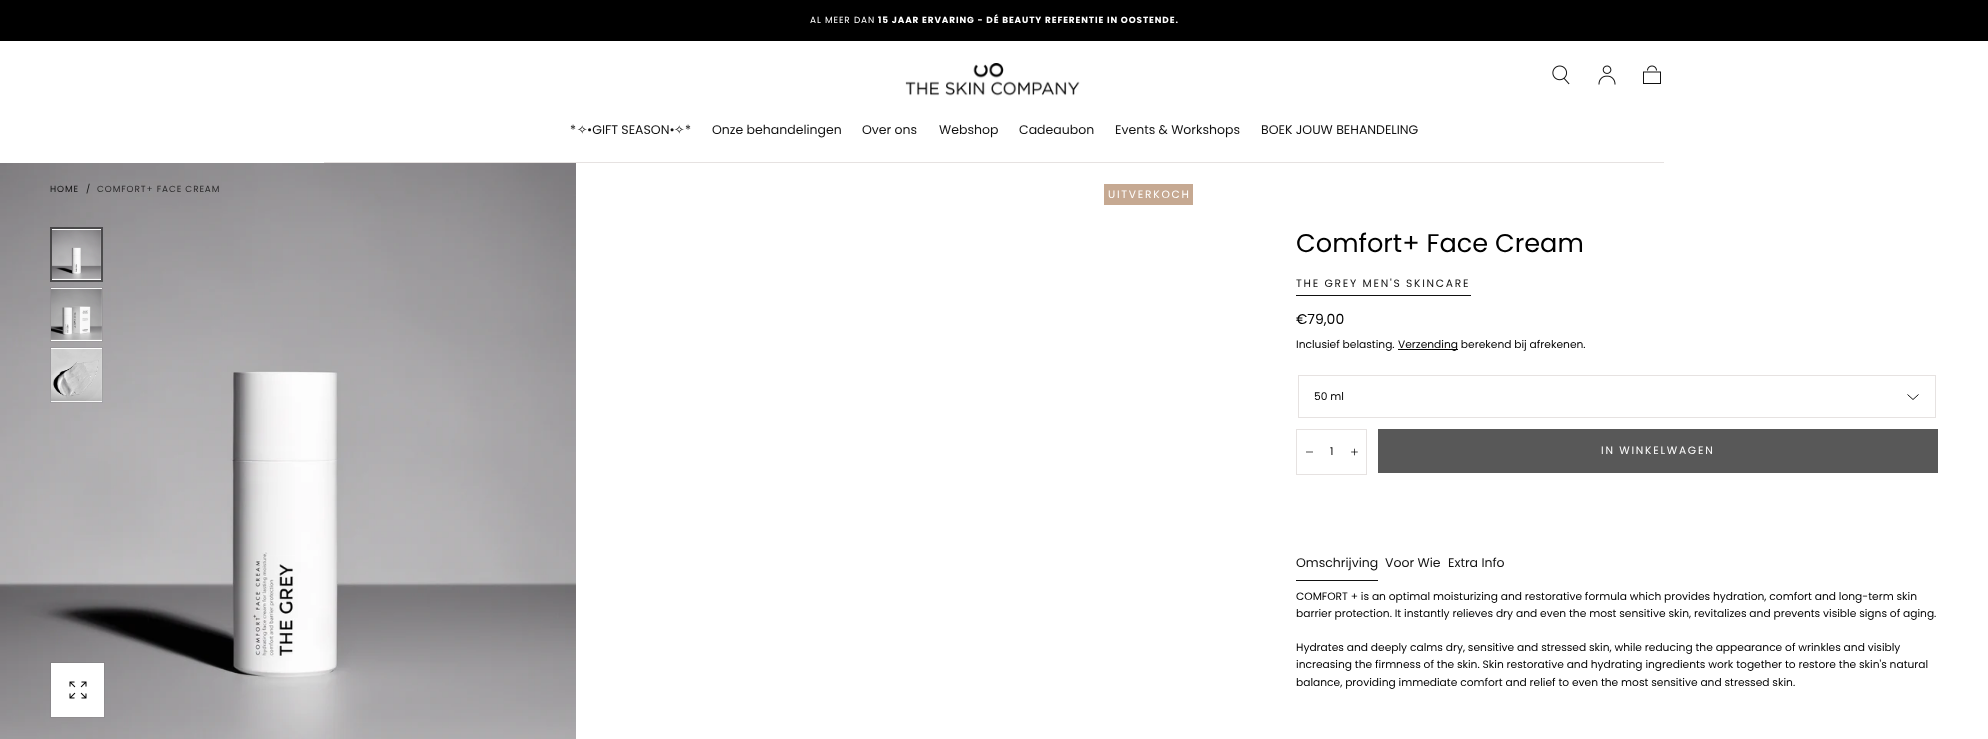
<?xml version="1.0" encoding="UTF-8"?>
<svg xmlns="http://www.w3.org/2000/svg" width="1988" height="739">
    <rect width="100%" height="100%" fill="#FFFFFF"/>
    <rect x="0" y="0" width="1988" height="41" fill="#000000"/>
    <text x="810" y="23" font-family="Poppins" font-size="8.9" letter-spacing="0.9" fill="#FFFFFF">AL MEER DAN</text>
    <text x="878" y="23" font-family="Poppins" font-size="8.9" font-weight="700" letter-spacing="0.9" fill="#FFFFFF">15 JAAR ERVARING - DÉ BEAUTY REFERENTIE IN OOSTENDE.</text>
    <image x="905" y="63" width="175" height="33" href="img_01.png"/>
    <image x="1552" y="65" width="18" height="20" href="img_02.png"/>
    <image x="1598" y="65" width="18" height="20" href="img_03.png"/>
    <image x="1643" y="65" width="18" height="19" href="img_04.png"/>
    <text x="570" y="134" font-family="Poppins" font-size="12.5" fill="#111111">*</text>
    <text x="577" y="134" font-family="DejaVu Sans" font-size="12.5" fill="#111111">✧</text>
    <text x="587" y="134" font-family="Poppins" font-size="12.5" fill="#111111">•GIFT SEASON•</text>
    <text x="674" y="134" font-family="DejaVu Sans" font-size="12.5" fill="#111111">✧</text>
    <text x="685" y="134" font-family="Poppins" font-size="12.5" fill="#111111">*</text>
    <text x="712" y="134" font-family="Poppins" font-size="12.5" fill="#111111">Onze behandelingen</text>
    <text x="862" y="134" font-family="Poppins" font-size="12.5" fill="#111111">Over ons</text>
    <text x="939" y="134" font-family="Poppins" font-size="12.5" fill="#111111">Webshop</text>
    <text x="1019" y="134" font-family="Poppins" font-size="12.5" fill="#111111">Cadeaubon</text>
    <text x="1115" y="134" font-family="Poppins" font-size="12.5" fill="#111111">Events &amp; Workshops</text>
    <text x="1261" y="134" font-family="Poppins" font-size="12.5" fill="#111111">BOEK JOUW BEHANDELING</text>
    <rect x="324" y="162" width="1340" height="1" fill="#E6E2E1"/>
    <image x="0" y="163" width="576" height="576" href="img_05.png"/>
    <rect x="50.5" y="662.5" width="54" height="55" fill="none" stroke="#000000" stroke-opacity="0.05"/>
    <rect x="51" y="663" width="53" height="54" fill="#FFFFFF"/>
    <image x="69" y="681" width="18" height="18" href="img_06.png"/>
    <rect x="51" y="228" width="51" height="53" fill="none" stroke="#000000" stroke-opacity="0.5" stroke-width="2"/>
    <rect x="52" y="229" width="49" height="51" fill="#FFFFFF"/>
    <image x="52" y="229" width="49" height="50" href="img_07.png"/>
    <rect x="50.5" y="287.5" width="52" height="54" fill="none" stroke="#000000" stroke-opacity="0.05"/>
    <rect x="51" y="288" width="51" height="53" fill="#FFFFFF"/>
    <image x="51" y="288" width="51" height="52" href="img_08.png"/>
    <rect x="50.5" y="347.5" width="52" height="55" fill="none" stroke="#000000" stroke-opacity="0.05"/>
    <rect x="51" y="348" width="51" height="54" fill="#FFFFFF"/>
    <image x="51" y="349" width="51" height="53" href="img_09.png"/>
    <text x="50" y="192" font-family="Poppins" font-size="8.9" letter-spacing="0.9" fill="#111111">HOME</text>
    <text x="86" y="192" font-family="Poppins" font-size="8.9" letter-spacing="0.9" fill="#111111">/</text>
    <text x="97" y="192" font-family="Poppins" font-size="8.9" letter-spacing="0.9" fill="#2B2A2B">COMFORT+ FACE CREAM</text>
    <rect x="1104" y="184" width="89" height="21" fill="#C6A992"/>
    <text x="1108" y="198" font-family="Poppins" font-size="10.68" letter-spacing="1.75" fill="#FFFFFF">UITVERKOCH</text>
    <text x="1296" y="252" font-family="Poppins" font-size="25.6" fill="#000000">Comfort+ Face Cream</text>
    <text x="1296" y="287" font-family="Poppins" font-size="10.68" letter-spacing="1.75" fill="#111111">THE GREY MEN'S SKINCARE</text>
    <rect x="1296" y="295" width="175" height="1" fill="#111111"/>
    <text x="1296" y="324" font-family="Poppins" font-size="14" fill="#000000">€79,00</text>
    <text x="1296" y="348" font-family="Poppins" font-size="10.68" fill="#000000">Inclusief belasting.</text>
    <rect x="1398" y="349" width="60" height="1" fill="#000000"/>
    <text x="1398" y="348" font-family="Poppins" font-size="10.68" fill="#000000">Verzending berekend bij afrekenen.</text>
    <rect x="1298.5" y="375.5" width="637" height="42" fill="none" stroke="#E6E2E1"/>
    <text x="1314" y="400" font-family="Poppins" font-size="10.68" fill="#000000">50 ml</text>
    <path d="M 1918.5 394.5 L 1913 399.5 L 1907.5 394.5" fill="none" stroke="#111111"/>
    <rect x="1296.5" y="429.5" width="70" height="45" fill="none" stroke="#E6E2E1"/>
    <path d="M 1306.5 452 H 1312.5" fill="none" stroke="#000000" stroke-width="0.7" stroke-linecap="square"/>
    <text x="1330" y="455" font-family="Poppins" font-size="10.68" fill="#000000">1</text>
    <image x="1351" y="448" width="7" height="8" href="img_10.png"/>
    <rect x="1378" y="429" width="560" height="44" fill="#585858"/>
    <text x="1601" y="454" font-family="Poppins" font-size="10.68" letter-spacing="1.75" fill="#FFFFFF">IN WINKELWAGEN</text>
    <rect x="1296" y="580" width="82" height="1" fill="#111111"/>
    <text x="1296" y="567" font-family="Poppins" font-size="12.5" fill="#111111">Omschrijving</text>
    <text x="1385" y="567" font-family="Poppins" font-size="12.5" fill="#111111">Voor Wie</text>
    <text x="1448" y="567" font-family="Poppins" font-size="12.5" fill="#111111">Extra Info</text>
    <text font-family="Poppins" font-size="10.68" fill="#000000">
        <tspan x="1296" y="600">COMFORT + is an optimal moisturizing and restorative formula which provides hydration, comfort and long-term skin</tspan>
        <tspan x="1296" y="617">barrier protection. It instantly relieves dry and even the most sensitive skin, revitalizes and prevents visible signs of aging.</tspan>
    </text>
    <text font-family="Poppins" font-size="10.68" fill="#000000">
        <tspan x="1296" y="651">Hydrates and deeply calms dry, sensitive and stressed skin, while reducing the appearance of wrinkles and visibly</tspan>
        <tspan x="1296" y="668">increasing the firmness of the skin. Skin restorative and hydrating ingredients work together to restore the skin's natural</tspan>
        <tspan x="1296" y="686">balance, providing immediate comfort and relief to even the most sensitive and stressed skin.</tspan>
    </text>
</svg>
